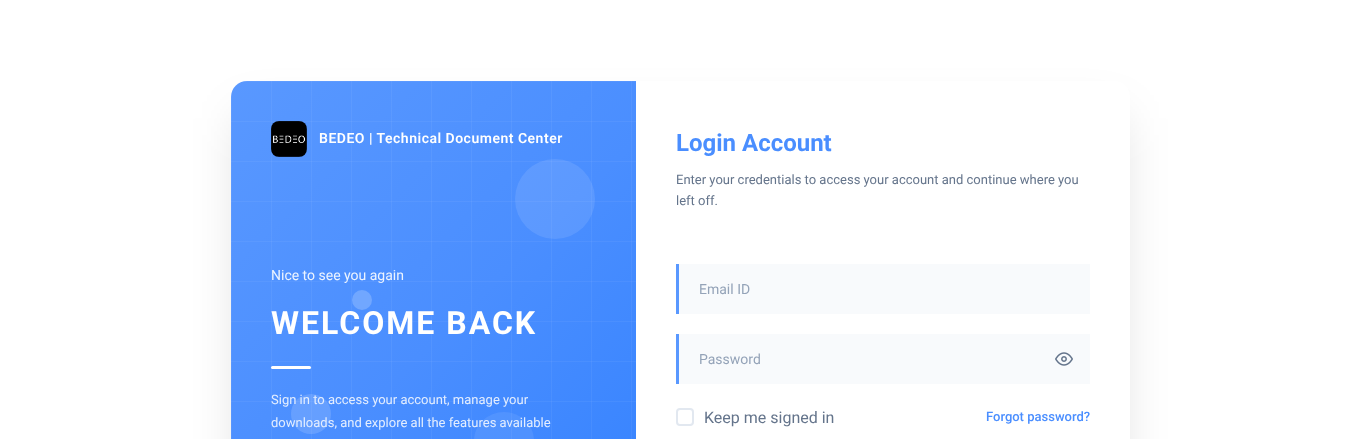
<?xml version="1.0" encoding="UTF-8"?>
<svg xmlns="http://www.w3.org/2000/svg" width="1361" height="439">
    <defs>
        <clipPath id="clip1"><path d="M 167 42 H 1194 V 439 H 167 Z M 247 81 H 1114 C 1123 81 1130 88 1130 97 V 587 C 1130 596 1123 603 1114 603 H 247 C 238 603 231 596 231 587 V 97 C 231 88 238 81 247 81 Z" clip-rule="evenodd"/></clipPath>
        <filter id="blur1" x="-50%" y="-200%" width="200%" height="500%"><feGaussianBlur stdDeviation="25"/></filter>
        <linearGradient id="g1" gradientUnits="userSpaceOnUse" x1="202" y1="110" x2="665" y2="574"><stop offset="0" stop-color="#5998FF"/><stop offset="0.5" stop-color="#4A8EFF"/><stop offset="1" stop-color="#3281FF"/></linearGradient>
        <linearGradient id="g2" gradientUnits="userSpaceOnUse" x1="202" y1="110" x2="665" y2="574"><stop offset="0" stop-color="#619DFF"/><stop offset="0.5" stop-color="#5394FF"/><stop offset="1" stop-color="#3C87FF"/></linearGradient>
    </defs>
    <rect width="100%" height="100%" fill="#FFFFFF"/>
    <g clip-path="url(#clip1)">
        <rect x="243" y="118" width="875" height="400" rx="4" fill="#000000" fill-opacity="0.15" filter="url(#blur1)"/>
    </g>
    <path d="M 247 81 H 636 V 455 H 247 C 238 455 231 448 231 439 V 97 C 231 88 238 81 247 81 Z" fill="url(#g1)"/>
    <rect x="631" y="81" width="1" height="358" fill="url(#g2)"/>
    <rect x="591" y="81" width="1" height="358" fill="url(#g2)"/>
    <rect x="551" y="81" width="1" height="358" fill="url(#g2)"/>
    <rect x="511" y="81" width="1" height="358" fill="url(#g2)"/>
    <rect x="471" y="81" width="1" height="358" fill="url(#g2)"/>
    <rect x="431" y="81" width="1" height="358" fill="url(#g2)"/>
    <rect x="391" y="81" width="1" height="358" fill="url(#g2)"/>
    <rect x="351" y="81" width="1" height="358" fill="url(#g2)"/>
    <rect x="311" y="81" width="1" height="358" fill="url(#g2)"/>
    <rect x="271" y="81" width="1" height="358" fill="url(#g2)"/>
    <rect x="231" y="93" width="1" height="346" fill="#FFFFFF" fill-opacity="0.05"/>
    <rect x="243" y="81" width="393" height="1" fill="#FFFFFF" fill-opacity="0.05"/>
    <rect x="231" y="121" width="405" height="1" fill="#FFFFFF" fill-opacity="0.05"/>
    <rect x="231" y="161" width="405" height="1" fill="#FFFFFF" fill-opacity="0.05"/>
    <rect x="231" y="201" width="405" height="1" fill="#FFFFFF" fill-opacity="0.05"/>
    <rect x="231" y="241" width="405" height="1" fill="#FFFFFF" fill-opacity="0.05"/>
    <rect x="231" y="281" width="405" height="1" fill="#FFFFFF" fill-opacity="0.05"/>
    <rect x="231" y="321" width="405" height="1" fill="#FFFFFF" fill-opacity="0.05"/>
    <rect x="231" y="361" width="405" height="1" fill="#FFFFFF" fill-opacity="0.05"/>
    <rect x="231" y="401" width="405" height="1" fill="#FFFFFF" fill-opacity="0.05"/>
    <image x="271" y="121" width="36" height="36" href="img_01.png"/>
    <text x="319" y="143" font-family="Roboto" font-size="14" font-weight="600" letter-spacing="0.5" fill="#FFFFFF">BEDEO | Technical Document Center</text>
    <circle cx="555" cy="199" r="40" fill="#FFFFFF" fill-opacity="0.1"/>
    <circle cx="362" cy="300" r="10" fill="#71A7FF"/>
    <circle cx="311" cy="414" r="20" fill="#FFFFFF" fill-opacity="0.15"/>
    <rect x="474" y="412" width="60" height="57" rx="30" fill="#FFFFFF" fill-opacity="0.08"/>
    <text x="271" y="280" font-family="Roboto" font-size="14" fill="#EDF4FF">Nice to see you again</text>
    <text x="271" y="334" font-family="Roboto" font-size="32" font-weight="700" letter-spacing="2" fill="#FFFFFF">WELCOME BACK</text>
    <rect x="271" y="366" width="40" height="3" rx="1.5" fill="#FFFFFF"/>
    <text font-family="Roboto" font-size="13" fill="#E4EEFF">
        <tspan x="271" y="404">Sign in to access your account, manage your</tspan>
        <tspan x="271" y="427">downloads, and explore all the features available</tspan>
    </text>
    <text x="676" y="151" font-family="Roboto" font-size="24" font-weight="700" fill="#4A8EFF">Login Account</text>
    <text font-family="Roboto" font-size="13" fill="#64748B">
        <tspan x="676" y="184">Enter your credentials to access your account and continue where you</tspan>
        <tspan x="676" y="205">left off.</tspan>
    </text>
    <rect x="679" y="264" width="411" height="50" fill="#F8FAFC"/>
    <rect x="676" y="264" width="3" height="50" fill="#5998FF"/>
    <text x="699" y="294" font-family="Roboto" font-size="14" fill="#94A3B8">Email ID</text>
    <rect x="679" y="334" width="411" height="50" fill="#F8FAFC"/>
    <rect x="676" y="334" width="3" height="50" fill="#5998FF"/>
    <text x="699" y="364" font-family="Roboto" font-size="14" fill="#94A3B8">Password</text>
    <image x="1055" y="352" width="18" height="14" href="img_02.png"/>
    <rect x="677" y="409" width="16" height="16" rx="3" fill="none" stroke="#E2E8F0" stroke-width="2"/>
    <text x="704" y="423" font-family="Roboto" font-size="16" fill="#64748B">Keep me signed in</text>
    <text x="986" y="421" font-family="Roboto" font-size="13" font-weight="500" fill="#4A8EFF">Forgot password?</text>
</svg>
